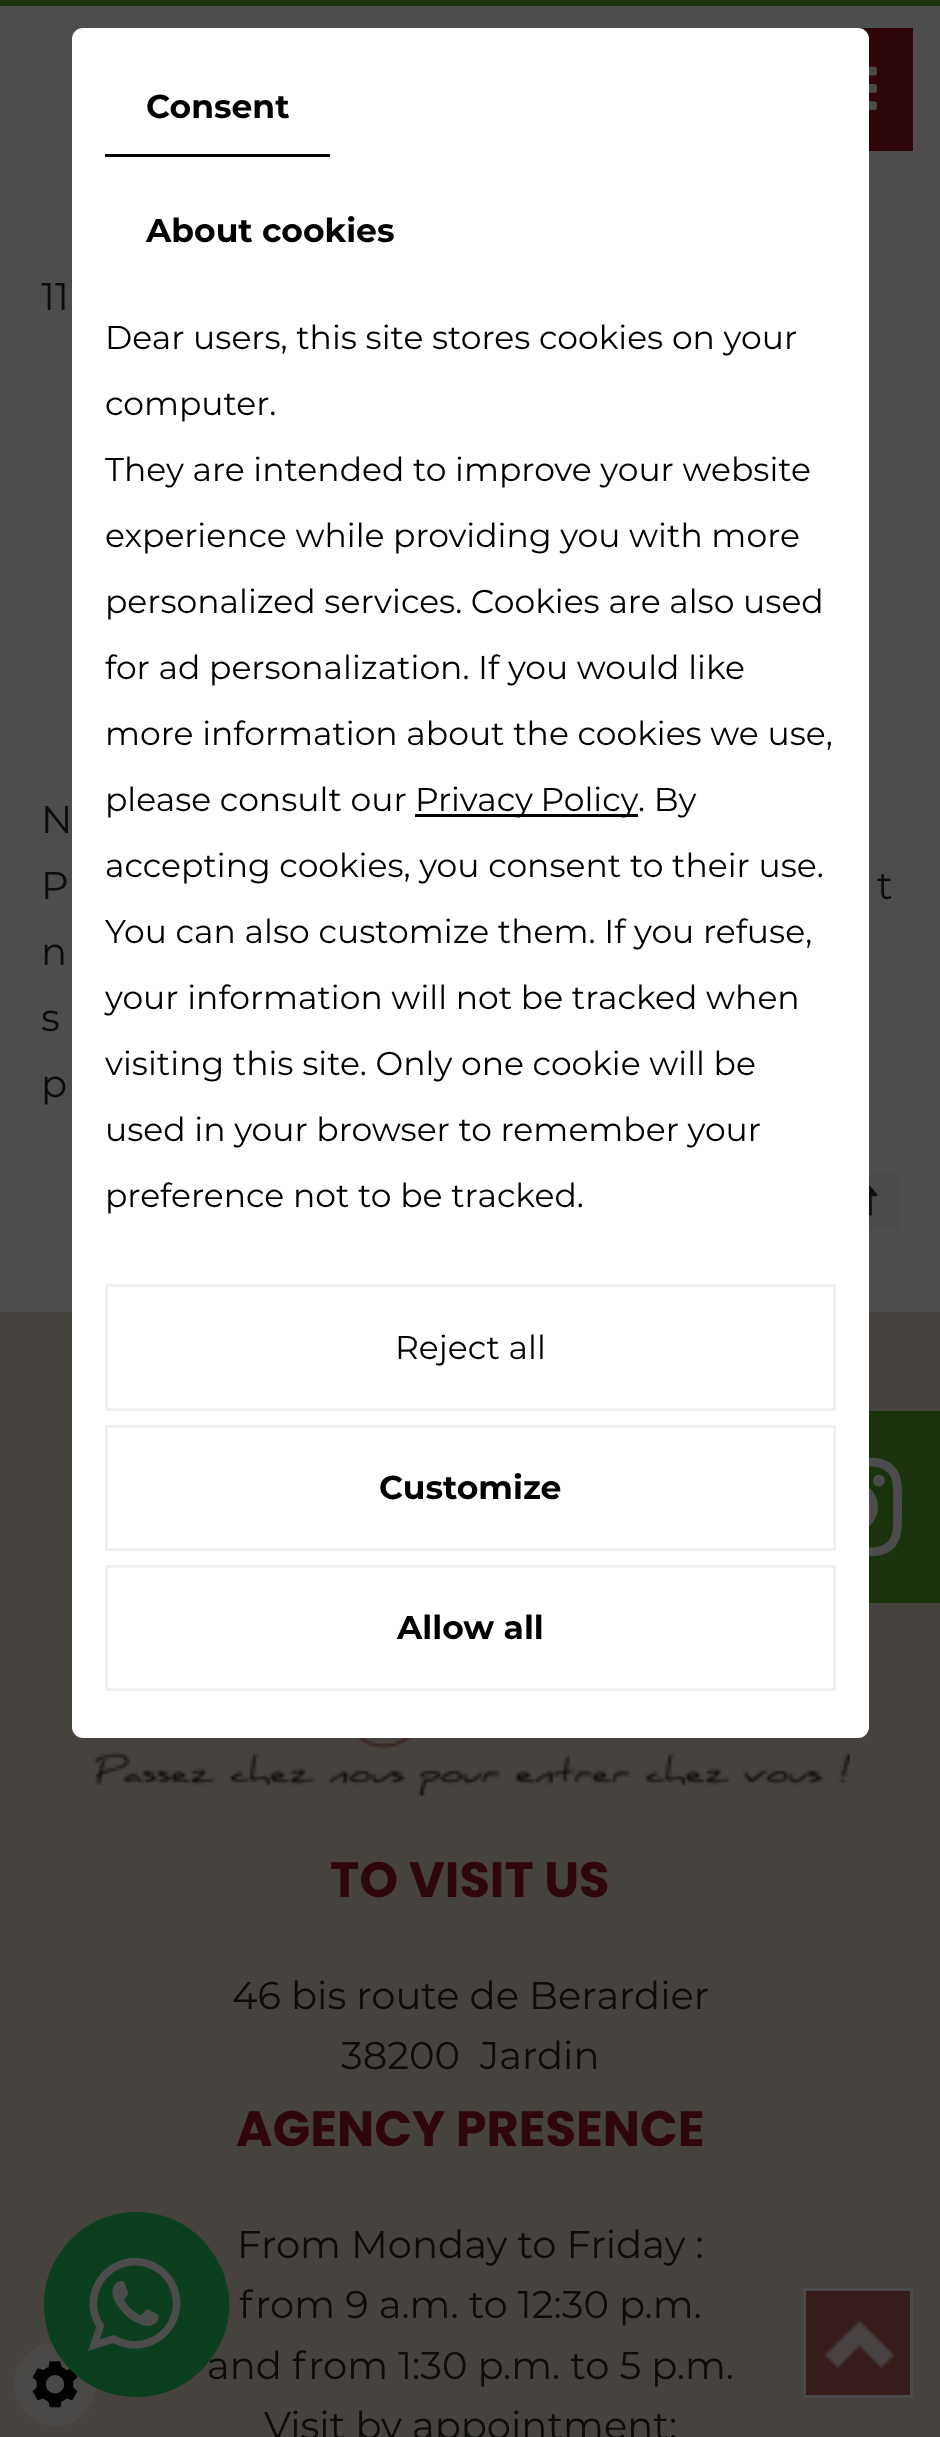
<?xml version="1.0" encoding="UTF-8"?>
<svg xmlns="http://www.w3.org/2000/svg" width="940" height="2437">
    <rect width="100%" height="100%" fill="#4D4D4D"/>
    <rect x="0" y="0" width="940" height="6" fill="#1A330C"/>
    <rect x="0" y="1312" width="940" height="1125" fill="#46423E"/>
    <rect x="869" y="1411" width="71" height="192" fill="#1A330C"/>
    <image x="869" y="1457" width="33" height="100" href="img_01.png"/>
    <rect x="858" y="28" width="55" height="123" fill="#2F0609"/>
    <rect x="72" y="28" width="797" height="1710" rx="11" fill="#FFFFFF"/>
    <rect x="105" y="154" width="225" height="3" fill="#000000"/>
    <text x="146" y="118" font-family="Montserrat" font-size="33" font-weight="700" fill="#000000">Consent</text>
    <text x="146" y="242" font-family="Montserrat" font-size="33" font-weight="700" fill="#000000">About cookies</text>
    <text x="105" y="349" font-family="Montserrat" font-size="33" fill="#000000">Dear users, this site stores cookies on your</text>
    <text x="105" y="415" font-family="Montserrat" font-size="33" fill="#000000">computer.</text>
    <text x="105" y="481" font-family="Montserrat" font-size="33" fill="#000000">They are intended to improve your website</text>
    <text x="105" y="547" font-family="Montserrat" font-size="33" fill="#000000">experience while providing you with more</text>
    <text x="105" y="613" font-family="Montserrat" font-size="33" fill="#000000">personalized services. Cookies are also used</text>
    <text x="105" y="679" font-family="Montserrat" font-size="33" fill="#000000">for ad personalization. If you would like</text>
    <text x="105" y="745" font-family="Montserrat" font-size="33" fill="#000000">more information about the cookies we use,</text>
    <text x="105" y="811" font-family="Montserrat" font-size="33" fill="#000000">please consult our</text>
    <rect x="415" y="814" width="223" height="3" fill="#000000"/>
    <text x="415" y="811" word-spacing="-1" font-family="Montserrat" font-size="33" fill="#000000">Privacy Policy</text>
    <text x="638" y="811" font-family="Montserrat" font-size="33" fill="#000000">. By</text>
    <text x="105" y="877" font-family="Montserrat" font-size="33" fill="#000000">accepting cookies, you consent to their use.</text>
    <text x="105" y="943" font-family="Montserrat" font-size="33" fill="#000000">You can also customize them. If you refuse,</text>
    <text x="105" y="1009" font-family="Montserrat" font-size="33" fill="#000000">your information will not be tracked when</text>
    <text x="105" y="1075" font-family="Montserrat" font-size="33" fill="#000000">visiting this site. Only one cookie will be</text>
    <text x="105" y="1141" font-family="Montserrat" font-size="33" fill="#000000">used in your browser to remember your</text>
    <text x="105" y="1207" font-family="Montserrat" font-size="33" fill="#000000">preference not to be tracked.</text>
    <rect x="106.5" y="1285.5" width="728" height="124" fill="none" stroke="#F0F0F0" stroke-width="3"/>
    <text x="395" y="1359" font-family="Montserrat" font-size="33" fill="#000000">Reject all</text>
    <rect x="106.5" y="1426.5" width="728" height="123" fill="none" stroke="#F0F0F0" stroke-width="3"/>
    <text x="379" y="1499" font-family="Montserrat" font-size="33" font-weight="700" fill="#000000">Customize</text>
    <rect x="106.5" y="1566.5" width="728" height="123" fill="none" stroke="#F0F0F0" stroke-width="3"/>
    <text x="397" y="1639" font-family="Montserrat" font-size="33" font-weight="700" fill="#000000">Allow all</text>
    <image x="869" y="66" width="8" height="44" href="img_02.png"/>
    <text x="41" y="310" font-family="Montserrat" font-size="38.5" fill="#0C0C0C">11</text>
    <text font-family="Montserrat" font-size="38.5" fill="#0C0C0C">
        <tspan x="41" y="833">N</tspan>
        <tspan x="41" y="899">P</tspan>
    </text>
    <text x="877" y="899" font-family="Montserrat" font-size="38.5" fill="#0C0C0C">t</text>
    <text font-family="Montserrat" font-size="38.5" fill="#0C0C0C">
        <tspan x="41" y="965">n</tspan>
        <tspan x="41" y="1031">s</tspan>
        <tspan x="41" y="1097">p</tspan>
    </text>
    <rect x="869" y="1174" width="30" height="55" fill="#4A4A4A"/>
    <image x="869" y="1185" width="9" height="31" href="img_03.png"/>
    <text x="207" y="2379" font-family="Montserrat" font-size="38.5" fill="#0C0C0C">and from 1:30 p.m. to 5 p.m.</text>
    <rect x="14" y="2343" width="82" height="83" rx="41" fill="#4A4846"/>
    <image x="32" y="2361" width="46" height="47" href="img_07.png"/>
    <path d="M 216 2258 C 226 2274 230 2292 229 2311 C 228 2327 222 2343 213 2356 C 175 2413 91 2410 56 2351 C 47 2335 43 2317 44 2298 C 45 2282 51 2266 60 2253 C 98 2196 182 2199 216 2258 Z" fill="#0B3F1F"/>
    <image x="88" y="2257" width="93" height="94" href="img_04.png"/>
    <image x="93" y="1738" width="757" height="58" href="img_05.png"/>
    <text x="330" y="1897" font-family="Poppins" font-size="49.5" font-weight="700" fill="#2F0609">TO VISIT US</text>
    <text x="232" y="2009" font-family="Montserrat" font-size="38.5" fill="#0C0C0C">46 bis route de Berardier</text>
    <text x="341" y="2069" font-family="Montserrat" font-size="38.5" fill="#0C0C0C">38200</text>
    <text x="480" y="2069" font-family="Montserrat" font-size="38.5" fill="#0C0C0C">Jardin</text>
    <text x="236" y="2146" font-family="Poppins" font-size="49.5" font-weight="700" fill="#2F0609">AGENCY PRESENCE</text>
    <text x="237" y="2258" font-family="Montserrat" font-size="38.5" fill="#0C0C0C">From Monday to Friday :</text>
    <text x="239" y="2318" font-family="Montserrat" font-size="38.5" fill="#0C0C0C">from 9 a.m. to 12:30 p.m.</text>
    <text x="264" y="2439" font-family="Montserrat" font-size="38.5" fill="#0C0C0C">Visit by appointment:</text>
    <rect x="806" y="2291" width="104" height="104" fill="#371C1C"/>
    <image x="824" y="2320" width="71" height="49" href="img_06.png"/>
    <rect x="804.5" y="2289.5" width="107" height="107" fill="none" stroke="#4B4A4A" stroke-width="3"/>
</svg>
